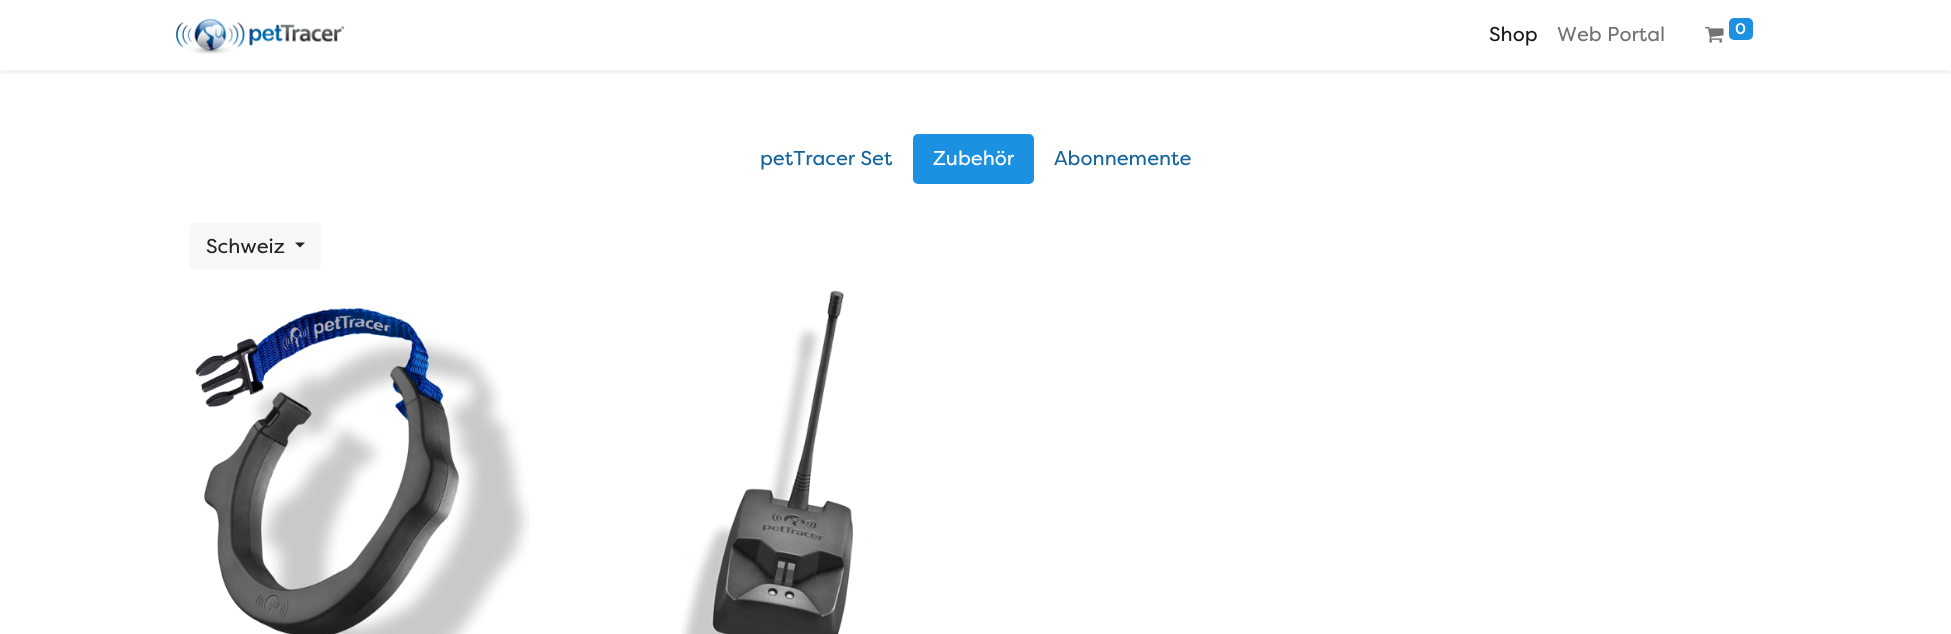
<?xml version="1.0" encoding="UTF-8"?>
<svg xmlns="http://www.w3.org/2000/svg" width="1951" height="634">
    <defs>
        <clipPath id="clip1"><rect x="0" y="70" width="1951" height="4"/></clipPath>
        <filter id="blur1" x="-50%" y="-200%" width="200%" height="500%"><feGaussianBlur stdDeviation="2.5"/></filter>
    </defs>
    <rect width="100%" height="100%" fill="#FFFFFF"/>
    <g clip-path="url(#clip1)">
        <rect x="0" y="3" width="1951" height="70" fill="#000000" fill-opacity="0.07" filter="url(#blur1)"/>
    </g>
    <image x="176" y="18" width="169" height="36" href="img_01.png"/>
    <text x="1489" y="41" font-family="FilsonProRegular" font-size="20" fill="#1A1A1A">Shop</text>
    <text x="1557" y="41" font-family="FilsonProRegular" font-size="20" fill="#737373">Web Portal</text>
    <image x="1705" y="26" width="19" height="17" href="img_02.png"/>
    <rect x="1729" y="18" width="24" height="22" rx="5" fill="#1C91E1"/>
    <text x="1735" y="34" font-family="FilsonProRegular" font-size="15" font-weight="700" fill="#FFFFFF">0</text>
    <text x="760" y="165" font-family="FilsonProRegular" font-size="20" fill="#14659D">petTracer Set</text>
    <rect x="913" y="134" width="121" height="50" rx="5" fill="#1C91E1"/>
    <text x="933" y="165" font-family="FilsonProRegular" font-size="20" fill="#FFFFFF">Zubehör</text>
    <text x="1054" y="165" font-family="FilsonProRegular" font-size="20" fill="#14659D">Abonnemente</text>
    <rect x="190" y="223" width="131" height="47" rx="5" fill="#F7F7F7"/>
    <text x="206" y="253" font-family="FilsonProRegular" font-size="20" fill="#212529">Schweiz</text>
    <path d="M 295 242.5 H 305 L 300 247.5 Z" fill="#212529"/>
    <image x="195" y="308" width="335" height="326" href="img_03.png"/>
    <image x="681" y="290" width="187" height="344" href="img_04.png"/>
</svg>
